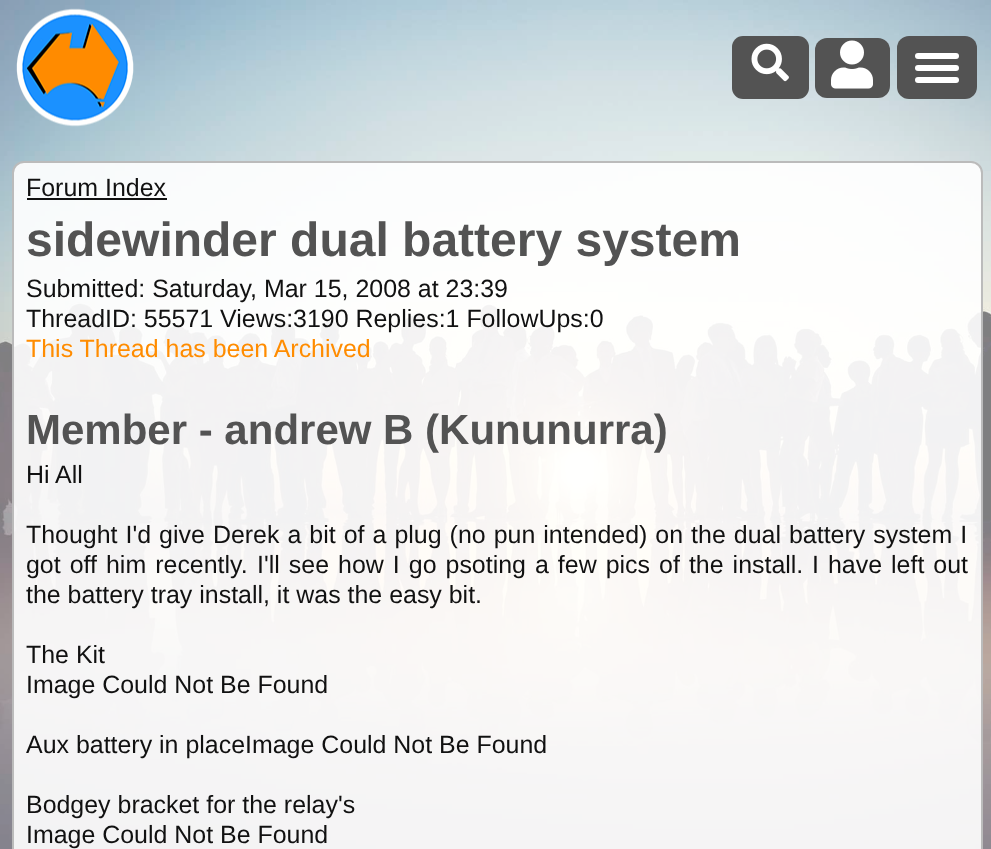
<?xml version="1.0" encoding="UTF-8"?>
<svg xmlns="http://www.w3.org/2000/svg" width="991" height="849">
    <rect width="100%" height="100%" fill="#FFFFFF"/>
    <image x="0" y="0" width="991" height="849" href="img_01.png"/>
    <image x="16" y="8" width="118" height="119" href="img_02.png"/>
    <rect x="732" y="36" width="77" height="63" rx="11" fill="#535353"/>
    <image x="751" y="43" width="38" height="39" href="img_03.png"/>
    <rect x="815" y="38" width="75" height="60" rx="12" fill="#535353"/>
    <image x="831" y="40" width="42" height="49" href="img_04.png"/>
    <rect x="897" y="36" width="80" height="63" rx="12" fill="#535353"/>
    <rect x="915" y="65" width="44" height="6" rx="3" fill="#FFFFFF"/>
    <rect x="915" y="53" width="44" height="6" rx="3" fill="#FFFFFF"/>
    <rect x="915" y="77" width="44" height="6" rx="3" fill="#FFFFFF"/>
    <rect x="13" y="162" width="969" height="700" rx="11" fill="#FFFFFF" fill-opacity="0.9" stroke="#BBBBBB" stroke-width="2"/>
    <text x="26" y="196" font-family="Liberation Sans" font-size="24.95" fill="#111111">Forum Index</text>
    <rect x="27" y="198" width="140" height="2" fill="#111111"/>
    <text x="26" y="256" font-family="Liberation Sans" font-size="48" font-weight="700" fill="#535353">sidewinder dual battery system</text>
    <text font-family="Liberation Sans" font-size="24.95" fill="#111111">
        <tspan x="26" y="297">Submitted: Saturday, Mar 15, 2008 at 23:39</tspan>
        <tspan x="26" y="327">ThreadID: 55571 Views:3190 Replies:1 FollowUps:0</tspan>
    </text>
    <text x="26" y="357" font-family="Liberation Sans" font-size="24.95" fill="#FF8C00">This Thread has been Archived</text>
    <text x="26" y="444" font-family="Liberation Sans" font-size="42" font-weight="700" fill="#535353">Member - andrew B (Kununurra)</text>
    <text x="26" y="483" font-family="Liberation Sans" font-size="24.95" fill="#111111">Hi All</text>
    <text font-family="Liberation Sans" font-size="24.95" fill="#111111">
        <tspan x="26" y="543" word-spacing="1.1">Thought I'd give Derek a bit of a plug (no pun intended) on the dual battery system I</tspan>
        <tspan x="26" y="573" word-spacing="2.1">got off him recently.</tspan>
    </text>
    <text x="257" y="573" word-spacing="2.1" font-family="Liberation Sans" font-size="24.95" fill="#111111">I'll see how I go psoting a few pics of the install.</text>
    <text x="812" y="573" word-spacing="2.1" font-family="Liberation Sans" font-size="24.95" fill="#111111">I have left out</text>
    <text x="26" y="603" font-family="Liberation Sans" font-size="24.95" fill="#111111">the battery tray install, it was the easy bit.</text>
    <text font-family="Liberation Sans" font-size="24.95" fill="#111111">
        <tspan x="26" y="663">The Kit</tspan>
        <tspan x="26" y="693">Image Could Not Be Found</tspan>
    </text>
    <text x="26" y="753" font-family="Liberation Sans" font-size="24.95" fill="#111111">Aux battery in placeImage Could Not Be Found</text>
    <text font-family="Liberation Sans" font-size="24.95" fill="#111111">
        <tspan x="26" y="813">Bodgey bracket for the relay's</tspan>
        <tspan x="26" y="843">Image Could Not Be Found</tspan>
    </text>
</svg>
